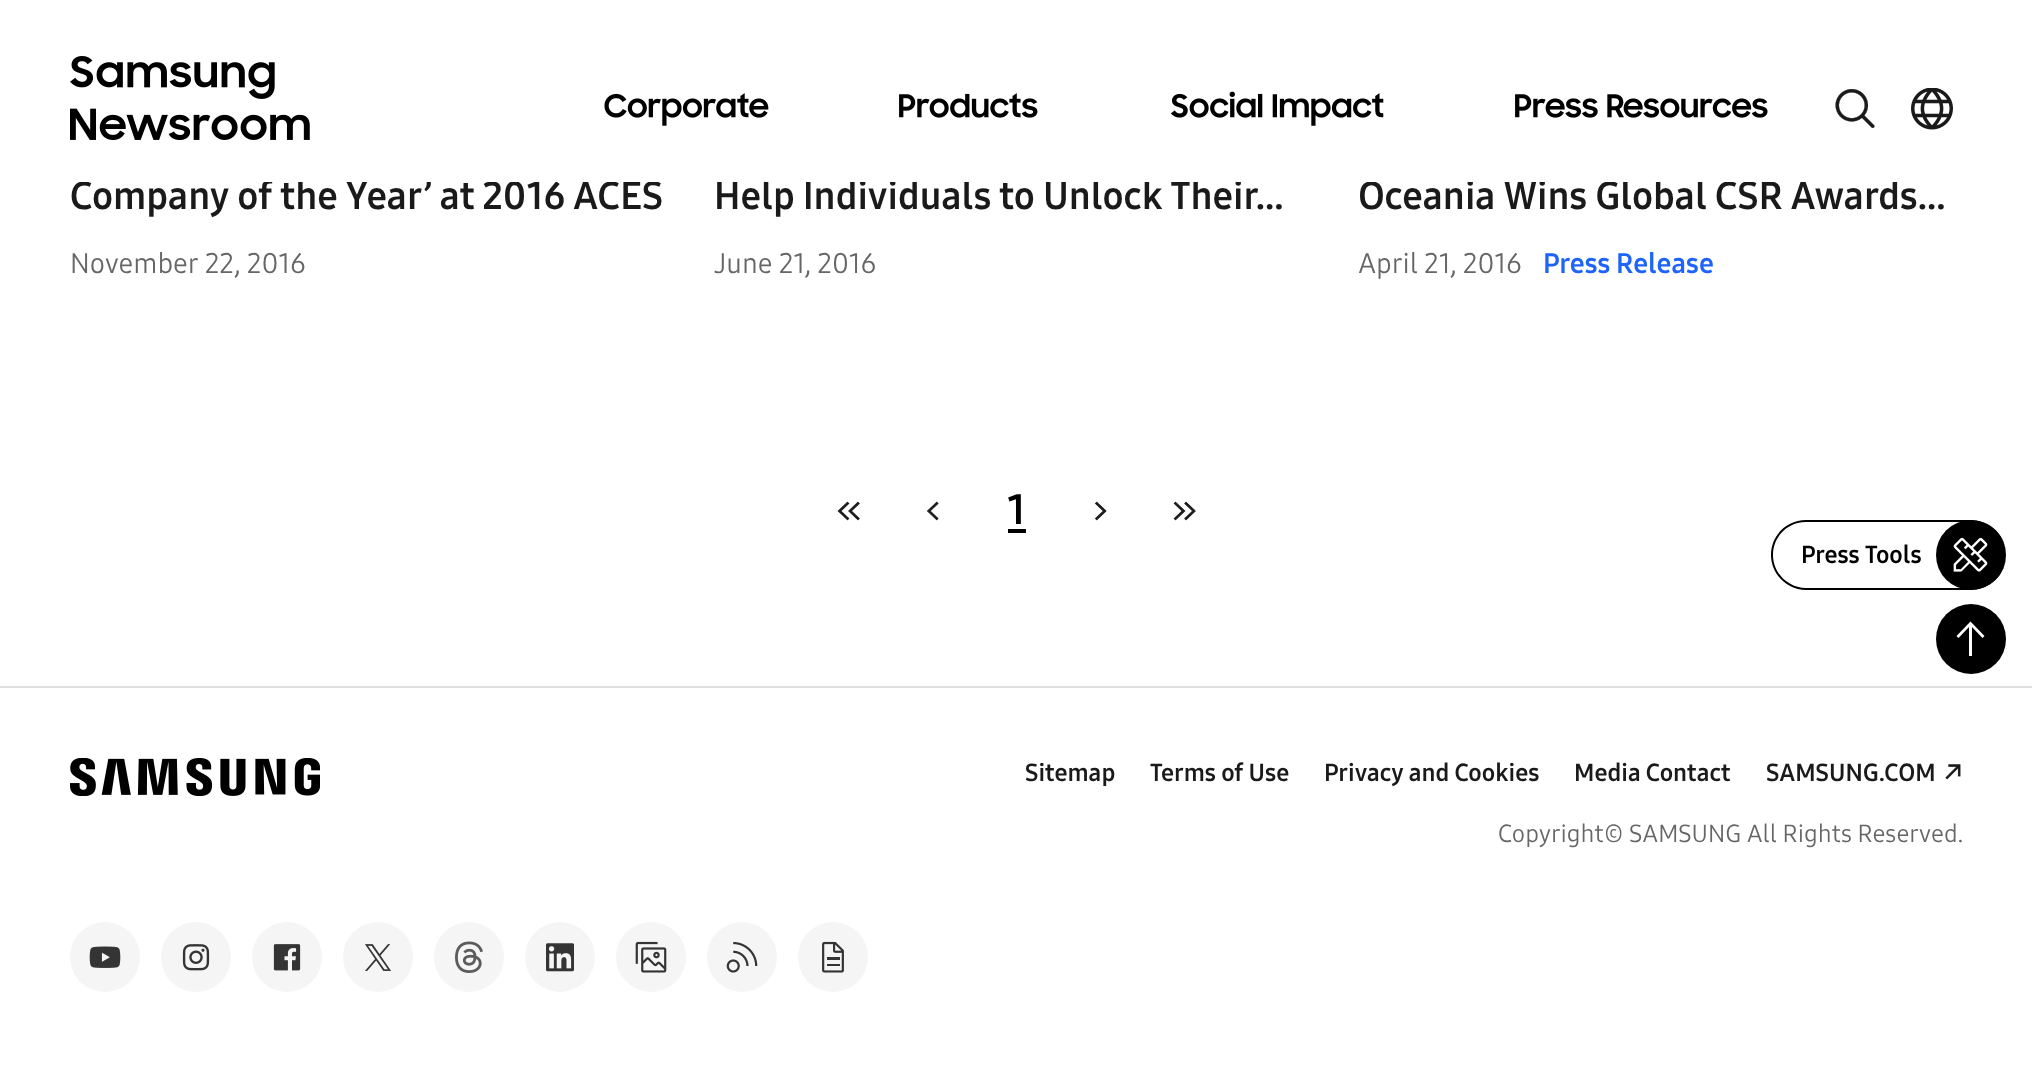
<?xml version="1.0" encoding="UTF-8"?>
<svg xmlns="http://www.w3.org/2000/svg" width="2032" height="1083">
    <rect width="100%" height="100%" fill="#FFFFFF"/>
    <text x="70" y="209" font-family="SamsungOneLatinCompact" font-size="38.5" font-weight="700" fill="#1A1A1A">Company of the Year’ at 2016 ACES</text>
    <text x="714" y="209" font-family="SamsungOneLatinCompact" font-size="38.5" font-weight="700" fill="#1A1A1A">Help Individuals to Unlock Their…</text>
    <text x="1358" y="209" font-family="SamsungOneLatinCompact" font-size="38.5" font-weight="700" fill="#1A1A1A">Oceania Wins Global CSR Awards…</text>
    <rect x="79" y="179" width="1819" height="3" fill="#FFFFFF"/>
    <image x="70" y="56" width="240" height="84" href="img_01.png"/>
    <image x="604" y="93" width="165" height="33" href="img_02.png"/>
    <image x="899" y="93" width="139" height="25" href="img_03.png"/>
    <image x="1170" y="91" width="214" height="35" href="img_04.png"/>
    <image x="1515" y="94" width="253" height="24" href="img_05.png"/>
    <image x="1835" y="89" width="40" height="39" href="img_06.png"/>
    <image x="1911" y="88" width="42" height="42" href="img_07.png"/>
    <text x="70" y="273" font-family="SamsungOneLatinCompact" font-size="28" fill="#666666">November 22, 2016</text>
    <text x="714" y="273" font-family="SamsungOneLatinCompact" font-size="28" fill="#666666">June 21, 2016</text>
    <text x="1358" y="273" font-family="SamsungOneLatinCompact" font-size="28" fill="#666666">April 21, 2016</text>
    <text x="1543" y="273" font-family="SamsungOneLatinCompact" font-size="28" font-weight="700" fill="#1E64FA">Press Release</text>
    <image x="837" y="501" width="23" height="20" href="img_08.png"/>
    <image x="927" y="501" width="12" height="20" href="img_09.png"/>
    <text x="1007" y="524" font-family="SamsungOneLatinCompact" font-size="42" font-weight="700" fill="#000000">1</text>
    <rect x="1008" y="529" width="18" height="4" fill="#000000"/>
    <image x="1094" y="501" width="13" height="20" href="img_10.png"/>
    <image x="1173" y="501" width="23" height="20" href="img_11.png"/>
    <path d="M 1806 520 H 1970 C 1990 520 2006 535 2006 555 C 2006 574 1990 590 1970 590 H 1806 C 1787 590 1771 574 1771 555 C 1771 535 1787 520 1806 520 Z M 1806 522 H 1970 C 1990 522 2006 536 2006 555 C 2006 573 1990 588 1970 588 H 1806 C 1788 588 1773 573 1773 555 C 1773 536 1788 522 1806 522 Z" fill="#000000" fill-rule="evenodd"/>
    <text x="1801" y="563" font-family="SamsungOneLatinCompact" font-size="24.5" font-weight="700" fill="#000000">Press Tools</text>
    <circle cx="1971" cy="555" r="35" fill="#000000"/>
    <image x="1953" y="537" width="35" height="35" href="img_12.png"/>
    <circle cx="1971" cy="639" r="35" fill="#000000"/>
    <path d="M 1970.5 621.5 L 1956.5 636 L 1958.5 638 L 1969 627 V 656 H 1972 V 627 L 1982.5 638 L 1984.5 636 Z" fill="#FFFFFF"/>
    <rect x="0" y="686" width="2032" height="2" fill="#E0E0E0"/>
    <image x="70" y="758" width="250" height="38" href="img_13.png"/>
    <text x="1025" y="781" font-family="SamsungOneLatinCompact" font-size="24.5" font-weight="700" fill="#1A1A1A">Sitemap</text>
    <text x="1150" y="781" font-family="SamsungOneLatinCompact" font-size="24.5" font-weight="700" fill="#1A1A1A">Terms of Use</text>
    <text x="1324" y="781" font-family="SamsungOneLatinCompact" font-size="24.5" font-weight="700" fill="#1A1A1A">Privacy and Cookies</text>
    <text x="1574" y="781" font-family="SamsungOneLatinCompact" font-size="24.5" font-weight="700" fill="#1A1A1A">Media Contact</text>
    <text x="1766" y="781" font-family="SamsungOneLatinCompact" font-size="24.5" font-weight="700" fill="#1A1A1A">SAMSUNG.COM</text>
    <image x="1945" y="764" width="16" height="16" href="img_14.png"/>
    <text x="1498" y="842" font-family="SamsungOneLatinCompact" font-size="24.5" fill="#666666">Copyright© SAMSUNG All Rights Reserved.</text>
    <circle cx="105" cy="957" r="35" fill="#F5F5F5"/>
    <image x="89" y="946" width="32" height="22" href="img_15.png"/>
    <circle cx="196" cy="957" r="35" fill="#F5F5F5"/>
    <image x="182" y="944" width="28" height="27" href="img_16.png"/>
    <circle cx="287" cy="957" r="35" fill="#F5F5F5"/>
    <image x="273" y="944" width="28" height="27" href="img_17.png"/>
    <circle cx="378" cy="957" r="35" fill="#F5F5F5"/>
    <image x="365" y="944" width="26" height="27" href="img_18.png"/>
    <circle cx="469" cy="957" r="35" fill="#F5F5F5"/>
    <image x="455" y="941" width="28" height="32" href="img_19.png"/>
    <circle cx="560" cy="957" r="35" fill="#F5F5F5"/>
    <image x="546" y="943" width="28" height="29" href="img_20.png"/>
    <circle cx="651" cy="957" r="35" fill="#F5F5F5"/>
    <image x="635" y="941" width="32" height="32" href="img_21.png"/>
    <circle cx="742" cy="957" r="35" fill="#F5F5F5"/>
    <image x="726" y="941" width="32" height="32" href="img_22.png"/>
    <circle cx="833" cy="957" r="35" fill="#F5F5F5"/>
    <image x="822" y="941" width="22" height="32" href="img_23.png"/>
</svg>
